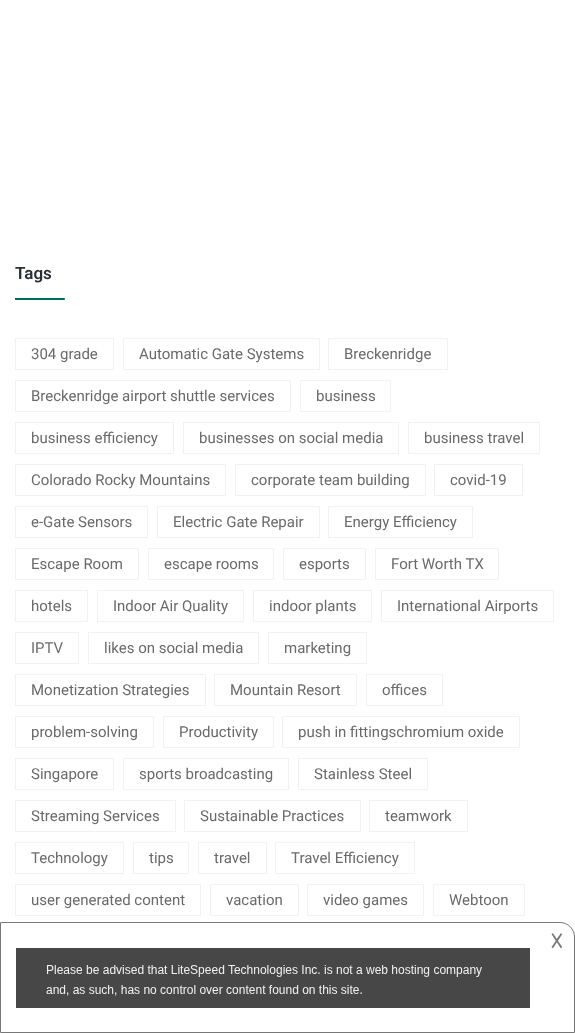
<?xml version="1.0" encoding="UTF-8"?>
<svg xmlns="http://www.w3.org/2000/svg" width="575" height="1033">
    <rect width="100%" height="100%" fill="#FFFFFF"/>
    <text x="15" y="279" font-family="Roboto" font-size="17" font-weight="600" fill="#2A2E34">Tags</text>
    <path d="M 15 298 H 64 C 64.5 298 65 298.5 65 299 C 65 299.5 64.5 300 64 300 H 15 Z" fill="#006D5B"/>
    <rect x="15.5" y="338.5" width="98" height="31" fill="none" stroke="#F2F2F2"/>
    <text x="31" y="359" font-family="Roboto" font-size="15" fill="#6A6A6A">304 grade</text>
    <rect x="123.5" y="338.5" width="196" height="31" fill="none" stroke="#F2F2F2"/>
    <text x="139" y="359" font-family="Roboto" font-size="15" fill="#6A6A6A">Automatic Gate Systems</text>
    <rect x="328.5" y="338.5" width="119" height="31" fill="none" stroke="#F2F2F2"/>
    <text x="344" y="359" font-family="Roboto" font-size="15" fill="#6A6A6A">Breckenridge</text>
    <rect x="15.5" y="380.5" width="275" height="31" fill="none" stroke="#F2F2F2"/>
    <text x="31" y="401" font-family="Roboto" font-size="15" fill="#6A6A6A">Breckenridge airport shuttle services</text>
    <rect x="300.5" y="380.5" width="90" height="31" fill="none" stroke="#F2F2F2"/>
    <text x="316" y="401" font-family="Roboto" font-size="15" fill="#6A6A6A">business</text>
    <rect x="15.5" y="422.5" width="158" height="31" fill="none" stroke="#F2F2F2"/>
    <text x="31" y="443" font-family="Roboto" font-size="15" fill="#6A6A6A">business efficiency</text>
    <rect x="183.5" y="422.5" width="215" height="31" fill="none" stroke="#F2F2F2"/>
    <text x="199" y="443" font-family="Roboto" font-size="15" fill="#6A6A6A">businesses on social media</text>
    <rect x="408.5" y="422.5" width="131" height="31" fill="none" stroke="#F2F2F2"/>
    <text x="424" y="443" font-family="Roboto" font-size="15" fill="#6A6A6A">business travel</text>
    <rect x="15.5" y="464.5" width="210" height="31" fill="none" stroke="#F2F2F2"/>
    <text x="31" y="485" font-family="Roboto" font-size="15" fill="#6A6A6A">Colorado Rocky Mountains</text>
    <rect x="235.5" y="464.5" width="190" height="31" fill="none" stroke="#F2F2F2"/>
    <text x="251" y="485" font-family="Roboto" font-size="15" fill="#6A6A6A">corporate team building</text>
    <rect x="434.5" y="464.5" width="88" height="31" fill="none" stroke="#F2F2F2"/>
    <text x="450" y="485" font-family="Roboto" font-size="15" fill="#6A6A6A">covid-19</text>
    <rect x="15.5" y="506.5" width="132" height="31" fill="none" stroke="#F2F2F2"/>
    <text x="31" y="527" font-family="Roboto" font-size="15" fill="#6A6A6A">e-Gate Sensors</text>
    <rect x="157.5" y="506.5" width="162" height="31" fill="none" stroke="#F2F2F2"/>
    <text x="173" y="527" font-family="Roboto" font-size="15" fill="#6A6A6A">Electric Gate Repair</text>
    <rect x="328.5" y="506.5" width="144" height="31" fill="none" stroke="#F2F2F2"/>
    <text x="344" y="527" font-family="Roboto" font-size="15" fill="#6A6A6A">Energy Efficiency</text>
    <rect x="15.5" y="548.5" width="123" height="31" fill="none" stroke="#F2F2F2"/>
    <text x="31" y="569" font-family="Roboto" font-size="15" fill="#6A6A6A">Escape Room</text>
    <rect x="148.5" y="548.5" width="125" height="31" fill="none" stroke="#F2F2F2"/>
    <text x="164" y="569" font-family="Roboto" font-size="15" fill="#6A6A6A">escape rooms</text>
    <rect x="283.5" y="548.5" width="82" height="31" fill="none" stroke="#F2F2F2"/>
    <text x="299" y="569" font-family="Roboto" font-size="15" fill="#6A6A6A">esports</text>
    <rect x="375.5" y="548.5" width="123" height="31" fill="none" stroke="#F2F2F2"/>
    <text x="391" y="569" font-family="Roboto" font-size="15" fill="#6A6A6A">Fort Worth TX</text>
    <rect x="15.5" y="590.5" width="72" height="31" fill="none" stroke="#F2F2F2"/>
    <text x="31" y="611" font-family="Roboto" font-size="15" fill="#6A6A6A">hotels</text>
    <rect x="97.5" y="590.5" width="146" height="31" fill="none" stroke="#F2F2F2"/>
    <text x="113" y="611" font-family="Roboto" font-size="15" fill="#6A6A6A">Indoor Air Quality</text>
    <rect x="253.5" y="590.5" width="118" height="31" fill="none" stroke="#F2F2F2"/>
    <text x="269" y="611" font-family="Roboto" font-size="15" fill="#6A6A6A">indoor plants</text>
    <rect x="381.5" y="590.5" width="172" height="31" fill="none" stroke="#F2F2F2"/>
    <text x="397" y="611" font-family="Roboto" font-size="15" fill="#6A6A6A">International Airports</text>
    <rect x="15.5" y="632.5" width="63" height="31" fill="none" stroke="#F2F2F2"/>
    <text x="31" y="653" font-family="Roboto" font-size="15" fill="#6A6A6A">IPTV</text>
    <rect x="88.5" y="632.5" width="170" height="31" fill="none" stroke="#F2F2F2"/>
    <text x="104" y="653" font-family="Roboto" font-size="15" fill="#6A6A6A">likes on social media</text>
    <rect x="268.5" y="632.5" width="98" height="31" fill="none" stroke="#F2F2F2"/>
    <text x="284" y="653" font-family="Roboto" font-size="15" fill="#6A6A6A">marketing</text>
    <rect x="15.5" y="674.5" width="190" height="31" fill="none" stroke="#F2F2F2"/>
    <text x="31" y="695" font-family="Roboto" font-size="15" fill="#6A6A6A">Monetization Strategies</text>
    <rect x="214.5" y="674.5" width="142" height="31" fill="none" stroke="#F2F2F2"/>
    <text x="230" y="695" font-family="Roboto" font-size="15" fill="#6A6A6A">Mountain Resort</text>
    <rect x="366.5" y="674.5" width="76" height="31" fill="none" stroke="#F2F2F2"/>
    <text x="382" y="695" font-family="Roboto" font-size="15" fill="#6A6A6A">offices</text>
    <rect x="15.5" y="716.5" width="138" height="31" fill="none" stroke="#F2F2F2"/>
    <text x="31" y="737" font-family="Roboto" font-size="15" fill="#6A6A6A">problem-solving</text>
    <rect x="163.5" y="716.5" width="110" height="31" fill="none" stroke="#F2F2F2"/>
    <text x="179" y="737" font-family="Roboto" font-size="15" fill="#6A6A6A">Productivity</text>
    <rect x="282.5" y="716.5" width="237" height="31" fill="none" stroke="#F2F2F2"/>
    <text x="298" y="737" font-family="Roboto" font-size="15" fill="#6A6A6A">push in fittingschromium oxide</text>
    <rect x="15.5" y="758.5" width="98" height="31" fill="none" stroke="#F2F2F2"/>
    <text x="31" y="779" font-family="Roboto" font-size="15" fill="#6A6A6A">Singapore</text>
    <rect x="123.5" y="758.5" width="165" height="31" fill="none" stroke="#F2F2F2"/>
    <text x="139" y="779" font-family="Roboto" font-size="15" fill="#6A6A6A">sports broadcasting</text>
    <rect x="298.5" y="758.5" width="129" height="31" fill="none" stroke="#F2F2F2"/>
    <text x="314" y="779" font-family="Roboto" font-size="15" fill="#6A6A6A">Stainless Steel</text>
    <rect x="15.5" y="800.5" width="160" height="31" fill="none" stroke="#F2F2F2"/>
    <text x="31" y="821" font-family="Roboto" font-size="15" fill="#6A6A6A">Streaming Services</text>
    <rect x="184.5" y="800.5" width="176" height="31" fill="none" stroke="#F2F2F2"/>
    <text x="200" y="821" font-family="Roboto" font-size="15" fill="#6A6A6A">Sustainable Practices</text>
    <rect x="369.5" y="800.5" width="98" height="31" fill="none" stroke="#F2F2F2"/>
    <text x="385" y="821" font-family="Roboto" font-size="15" fill="#6A6A6A">teamwork</text>
    <rect x="15.5" y="842.5" width="108" height="31" fill="none" stroke="#F2F2F2"/>
    <text x="31" y="863" font-family="Roboto" font-size="15" fill="#6A6A6A">Technology</text>
    <rect x="133.5" y="842.5" width="55" height="31" fill="none" stroke="#F2F2F2"/>
    <text x="149" y="863" font-family="Roboto" font-size="15" fill="#6A6A6A">tips</text>
    <rect x="198.5" y="842.5" width="68" height="31" fill="none" stroke="#F2F2F2"/>
    <text x="214" y="863" font-family="Roboto" font-size="15" fill="#6A6A6A">travel</text>
    <rect x="275.5" y="842.5" width="139" height="31" fill="none" stroke="#F2F2F2"/>
    <text x="291" y="863" font-family="Roboto" font-size="15" fill="#6A6A6A">Travel Efficiency</text>
    <rect x="15.5" y="884.5" width="185" height="31" fill="none" stroke="#F2F2F2"/>
    <text x="31" y="905" font-family="Roboto" font-size="15" fill="#6A6A6A">user generated content</text>
    <rect x="210.5" y="884.5" width="88" height="31" fill="none" stroke="#F2F2F2"/>
    <text x="226" y="905" font-family="Roboto" font-size="15" fill="#6A6A6A">vacation</text>
    <rect x="307.5" y="884.5" width="116" height="31" fill="none" stroke="#F2F2F2"/>
    <text x="323" y="905" font-family="Roboto" font-size="15" fill="#6A6A6A">video games</text>
    <rect x="433.5" y="884.5" width="91" height="31" fill="none" stroke="#F2F2F2"/>
    <text x="449" y="905" font-family="Roboto" font-size="15" fill="#6A6A6A">Webtoon</text>
    <path d="M 0.5 922.5 H 560 C 568 922.5 574.5 929 574.5 937 V 1032.5 H 0.5 Z" fill="none" stroke="#777777"/>
    <text x="550" y="948" font-family="DejaVu Sans" font-size="20" fill="#777777">𐌢</text>
    <image x="16" y="948" width="514" height="60" href="img_01.png"/>
</svg>
